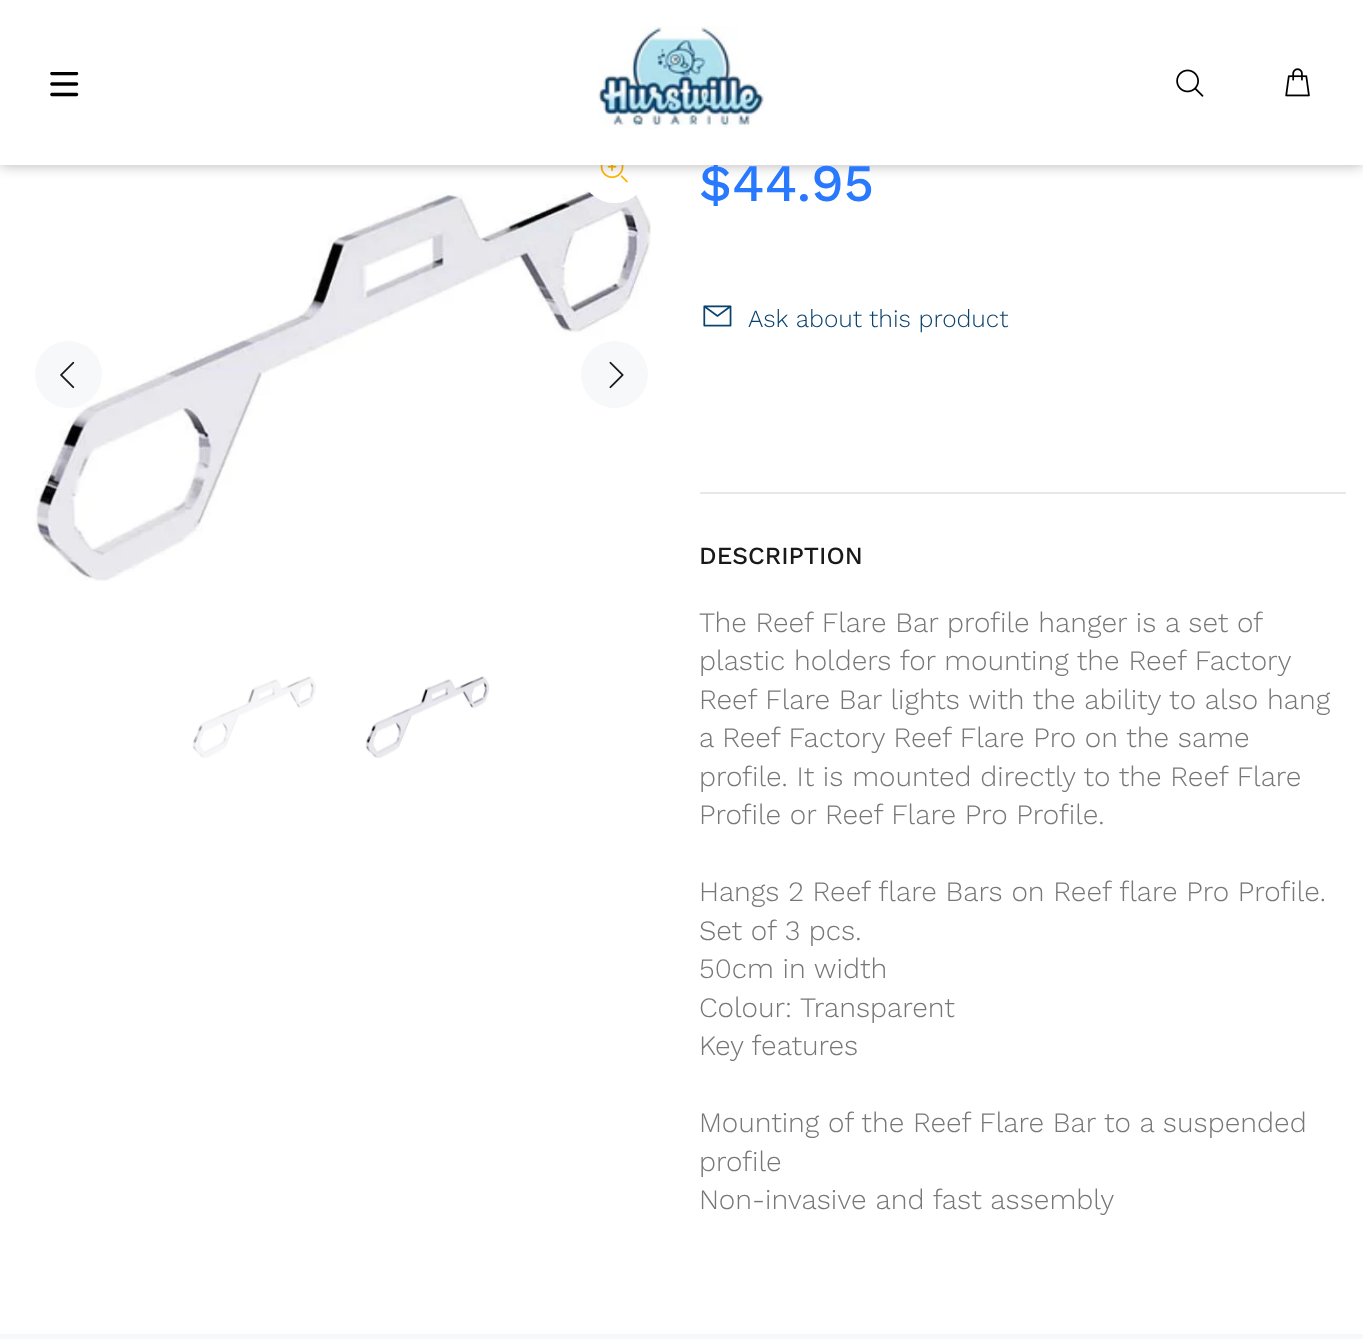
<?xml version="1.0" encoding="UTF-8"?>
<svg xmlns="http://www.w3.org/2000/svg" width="1363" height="1339">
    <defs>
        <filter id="blur1" x="-50%" y="-200%" width="200%" height="500%"><feGaussianBlur stdDeviation="7"/></filter>
    </defs>
    <rect width="100%" height="100%" fill="#FFFFFF"/>
    <image x="34" y="178" width="617" height="403" href="img_06.png"/>
    <rect x="581" y="137" width="67" height="66" rx="33" fill="#FFFFFF"/>
    <image x="600" y="165" width="28" height="18" href="img_05.png"/>
    <rect x="0" y="0" width="1363" height="165" fill="#000000" fill-opacity="0.3" filter="url(#blur1)"/>
    <text x="699" y="201" font-family="Work Sans" font-size="52.5" font-weight="500" fill="#2879FE">$44.95</text>
    <rect x="0" y="0" width="1363" height="165" fill="#FFFFFF"/>
    <image x="50" y="72" width="29" height="25" href="img_01.png"/>
    <image x="598" y="26" width="167" height="103" href="img_02.png"/>
    <image x="1176" y="69" width="28" height="28" href="img_03.png"/>
    <image x="1285" y="68" width="25" height="29" href="img_04.png"/>
    <circle cx="68.5" cy="374.5" r="33.5" fill="#F7F8FA"/>
    <image x="60" y="361" width="15" height="28" href="img_07.png"/>
    <circle cx="614.5" cy="374.5" r="33.5" fill="#F7F8FA"/>
    <image x="609" y="361" width="15" height="28" href="img_08.png"/>
    <image x="192" y="676" width="124" height="83" href="img_09.png"/>
    <image x="365" y="676" width="125" height="83" href="img_10.png"/>
    <image x="703" y="305" width="29" height="22" href="img_11.png"/>
    <text x="748" y="327" font-family="Work Sans" font-size="24.5" font-weight="300" fill="#0A426E">Ask about this product</text>
    <rect x="700" y="492" width="646" height="2" fill="#E9E7E7"/>
    <text x="699" y="564" font-family="Work Sans" font-size="24.5" font-weight="500" fill="#191919">DESCRIPTION</text>
    <text font-family="Work Sans" font-size="28" font-weight="300" fill="#777777">
        <tspan x="699" y="632">The Reef Flare Bar profile hanger is a set of</tspan>
        <tspan x="699" y="670">plastic holders for mounting the Reef Factory</tspan>
        <tspan x="699" y="709">Reef Flare Bar lights with the ability to also hang</tspan>
        <tspan x="699" y="747">a Reef Factory Reef Flare Pro on the same</tspan>
        <tspan x="699" y="786">profile. It is mounted directly to the Reef Flare</tspan>
        <tspan x="699" y="824">Profile or Reef Flare Pro Profile.</tspan>
    </text>
    <text font-family="Work Sans" font-size="28" font-weight="300" fill="#777777">
        <tspan x="699" y="901">Hangs 2 Reef flare Bars on Reef flare Pro Profile.</tspan>
        <tspan x="699" y="940">Set of 3 pcs.</tspan>
        <tspan x="699" y="978">50cm in width</tspan>
        <tspan x="699" y="1017">Colour: Transparent</tspan>
        <tspan x="699" y="1055">Key features</tspan>
    </text>
    <text font-family="Work Sans" font-size="28" font-weight="300" fill="#777777">
        <tspan x="699" y="1132">Mounting of the Reef Flare Bar to a suspended</tspan>
        <tspan x="699" y="1171">profile</tspan>
        <tspan x="699" y="1209">Non-invasive and fast assembly</tspan>
    </text>
    <rect x="0" y="1334" width="1363" height="5" fill="#F7F8FA"/>
</svg>
